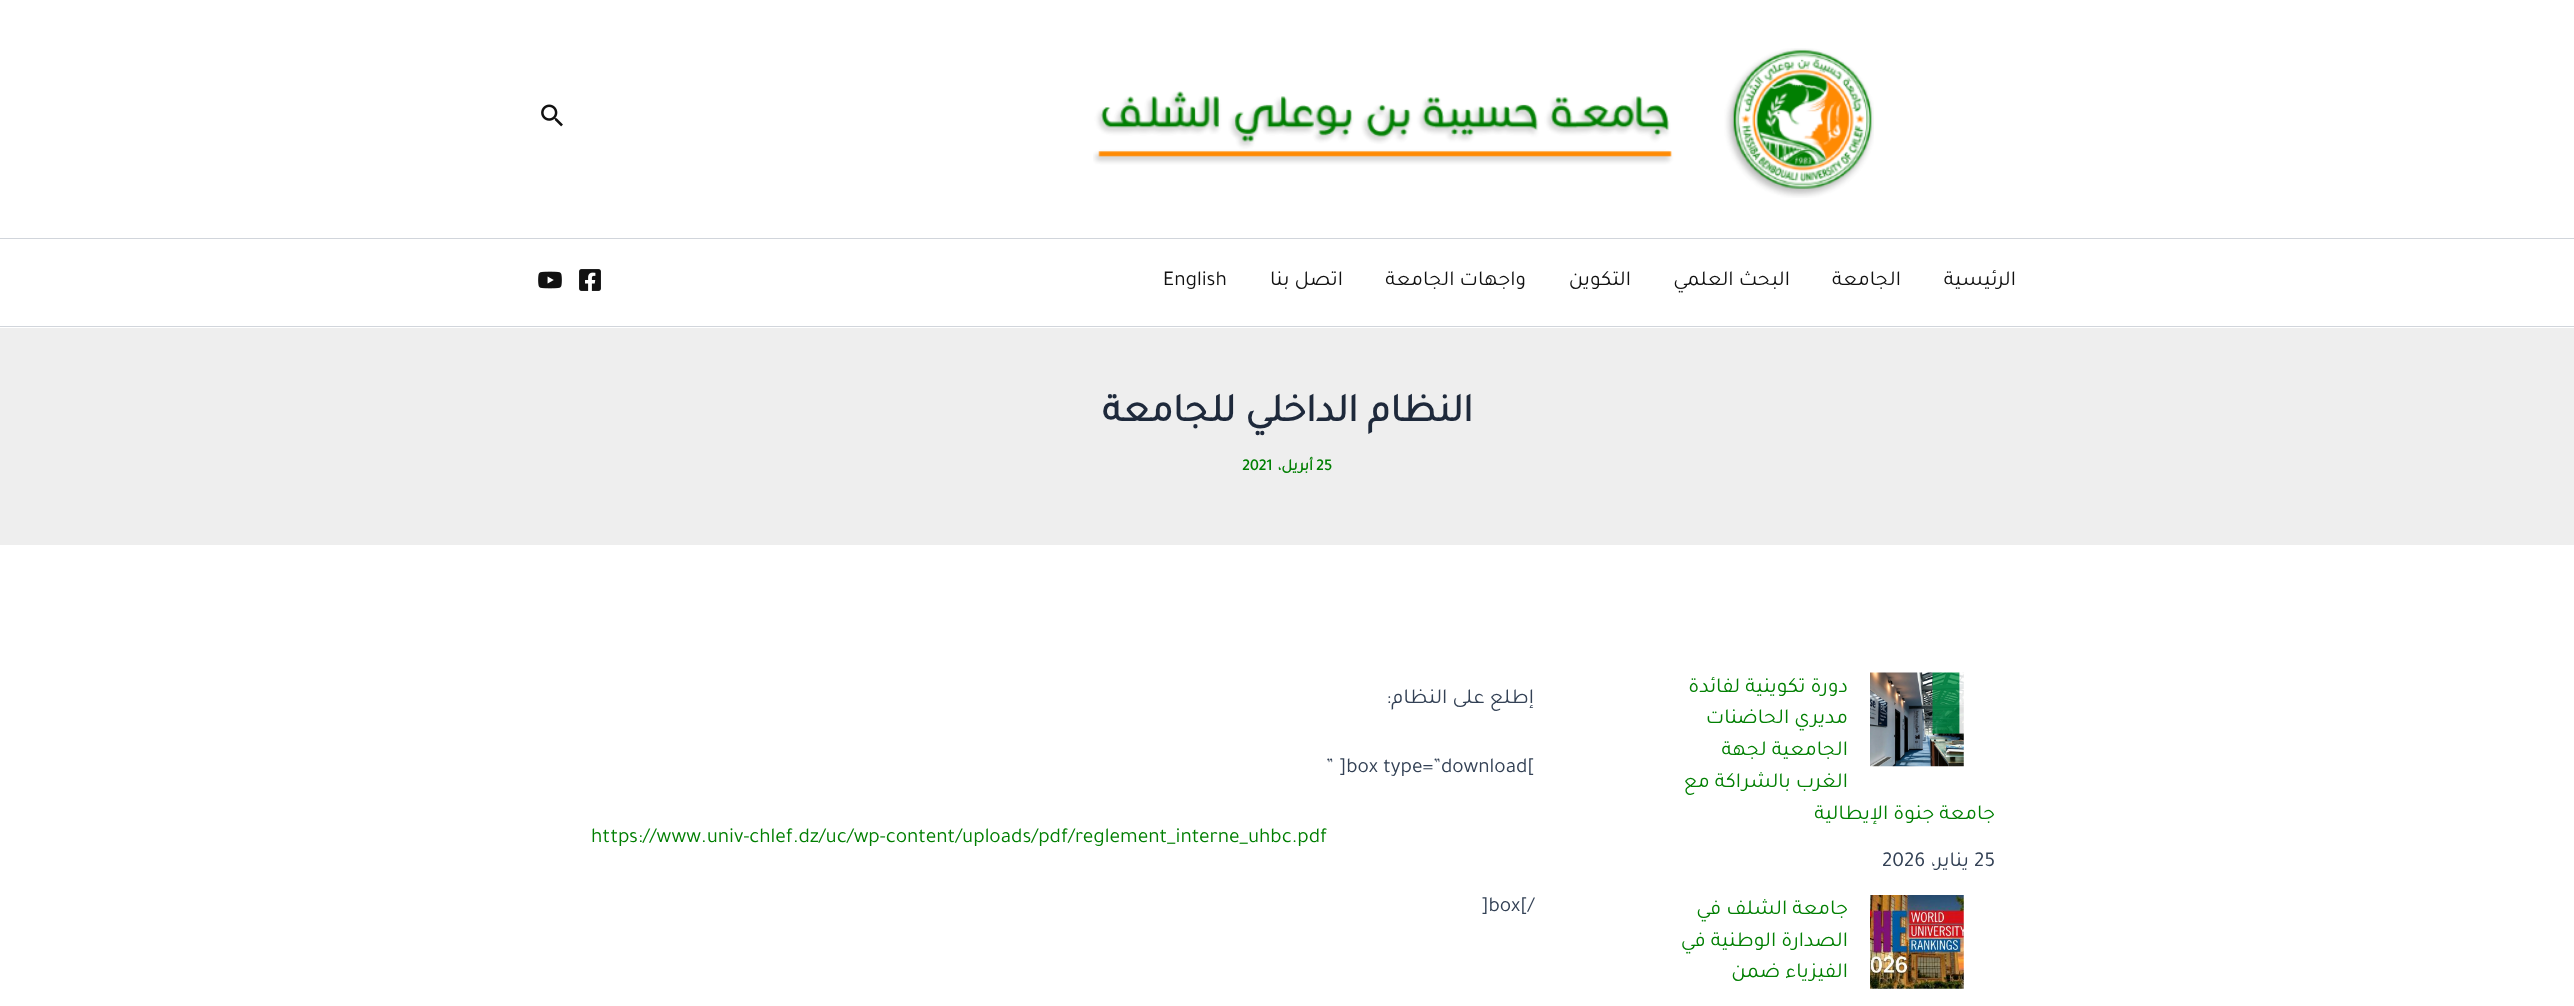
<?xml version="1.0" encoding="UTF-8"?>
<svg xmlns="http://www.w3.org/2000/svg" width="2574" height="1006">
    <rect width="100%" height="100%" fill="#FFFFFF"/>
    <rect x="0" y="238" width="2574" height="1" fill="#D1D5DB"/>
    <image x="1093" y="48" width="781" height="150" href="img_01.png"/>
    <image x="541" y="104" width="22" height="23" href="img_02.png"/>
    <rect x="0" y="326" width="2574" height="1" fill="#D1D5DB"/>
    <text x="2016" y="285" font-family="Tajawal" font-size="21.25" direction="rtl" fill="#111111">الرئيسية</text>
    <text x="1901" y="285" font-family="Tajawal" font-size="21.25" direction="rtl" fill="#111111">الجامعة</text>
    <text x="1790" y="285" font-family="Tajawal" font-size="21.25" direction="rtl" fill="#111111">البحث العلمي</text>
    <text x="1631" y="285" font-family="Tajawal" font-size="21.25" direction="rtl" fill="#111111">التكوين</text>
    <text x="1526" y="285" font-family="Tajawal" font-size="21.25" direction="rtl" fill="#111111">واجهات الجامعة</text>
    <text x="1343" y="285" font-family="Tajawal" font-size="21.25" direction="rtl" fill="#111111">اتصل بنا</text>
    <text x="1163" y="285" font-family="Tajawal" font-size="21.25" fill="#111111">English</text>
    <image x="579" y="269" width="22" height="22" href="img_03.png"/>
    <image x="538" y="271" width="24" height="18" href="img_04.png"/>
    <rect x="0" y="328" width="2574" height="217" fill="#EEEEEE"/>
    <text x="1473" y="421" font-family="Tajawal" font-size="40" font-weight="700" direction="rtl" fill="#1E293B">النظام الداخلي للجامعة</text>
    <text x="1316" y="470" font-family="Tajawal" font-size="16" font-weight="700" fill="#017F02">25</text>
    <text x="1313" y="470" font-family="Tajawal" font-size="16" font-weight="700" direction="rtl" fill="#017F02">أبريل،</text>
    <text x="1242" y="470" font-family="Tajawal" font-size="16" font-weight="700" fill="#017F02">2021</text>
    <image x="1870" y="672" width="94" height="95" href="img_05.png"/>
    <text font-family="Tajawal" font-size="21.25" direction="rtl" fill="#017F02">
        <tspan x="1848" y="692">دورة تكوينية لفائدة</tspan>
        <tspan x="1848" y="723">مديري الحاضنات</tspan>
        <tspan x="1848" y="755">الجامعية لجهة</tspan>
        <tspan x="1848" y="787">الغرب بالشراكة مع</tspan>
    </text>
    <text x="1995" y="819" font-family="Tajawal" font-size="21.25" direction="rtl" fill="#017F02">جامعة جنوة الإيطالية</text>
    <text x="1974" y="866" font-family="Tajawal" font-size="21.25" fill="#334155">25</text>
    <text x="1969" y="866" font-family="Tajawal" font-size="21.25" direction="rtl" fill="#334155">يناير،</text>
    <text x="1882" y="866" font-family="Tajawal" font-size="21.25" fill="#334155">2026</text>
    <image x="1870" y="895" width="94" height="94" href="img_06.png"/>
    <text font-family="Tajawal" font-size="21.25" direction="rtl" fill="#017F02">
        <tspan x="1848" y="914">جامعة الشلف في</tspan>
        <tspan x="1848" y="946">الصدارة الوطنية في</tspan>
        <tspan x="1848" y="977">الفيزياء ضمن</tspan>
    </text>
    <text x="1534" y="703" font-family="Tajawal" font-size="21.25" direction="rtl" fill="#334155">إطلع على النظام:</text>
    <text x="1326" y="772" font-family="Tajawal" font-size="21.25" fill="#334155">” ]box type=”download[</text>
    <text x="591" y="842" font-family="Tajawal" font-size="21.25" fill="#017F02">https://www.univ-chlef.dz/uc/wp-content/uploads/pdf/reglement_interne_uhbc.pdf</text>
    <text x="1481" y="911" font-family="Tajawal" font-size="21.25" fill="#334155">]box[/</text>
</svg>
